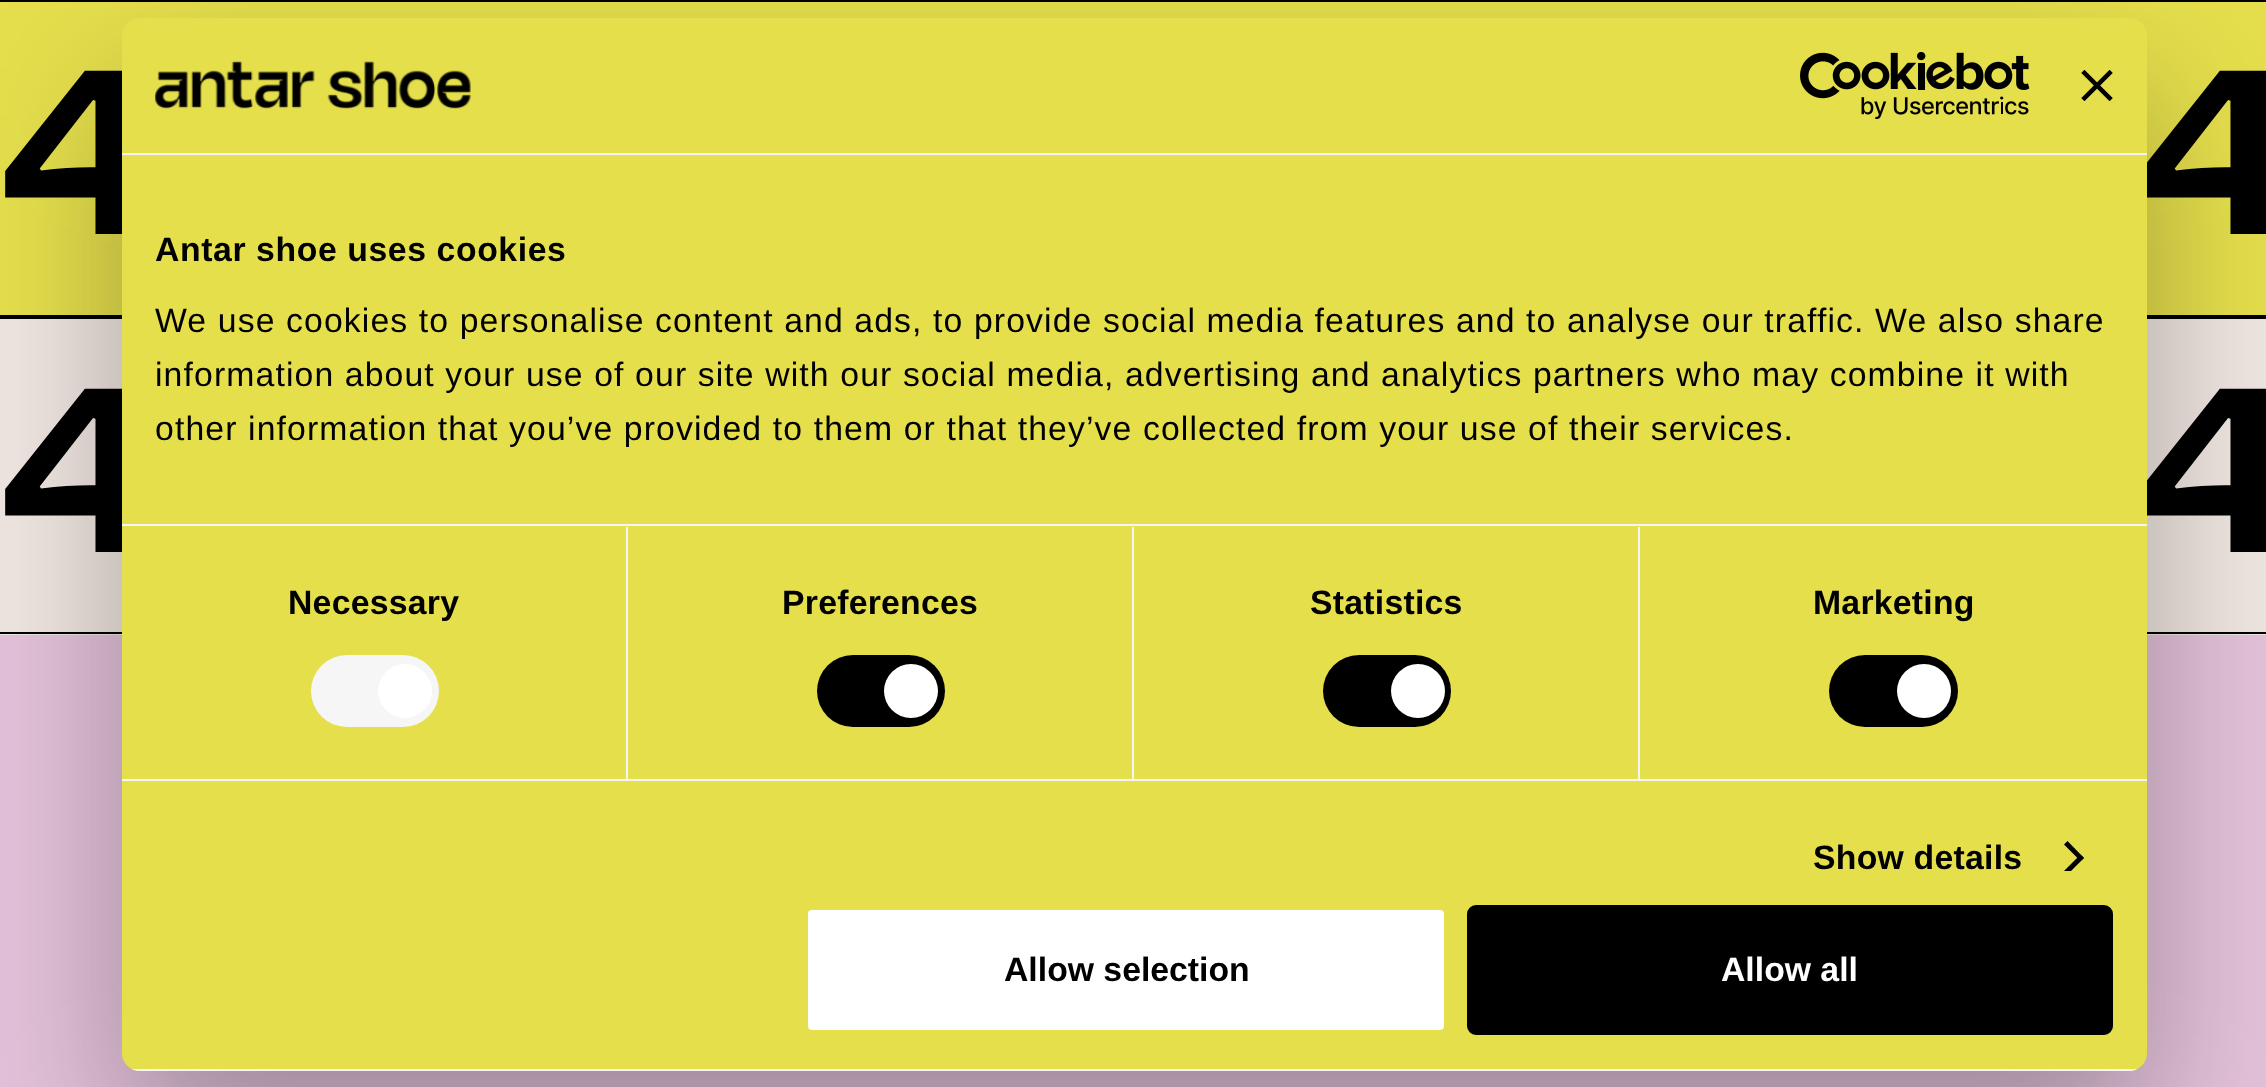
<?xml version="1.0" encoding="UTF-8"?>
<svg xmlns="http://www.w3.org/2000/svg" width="2266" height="1087">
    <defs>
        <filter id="blur1" x="-50%" y="-200%" width="200%" height="500%"><feGaussianBlur stdDeviation="76.5"/></filter>
        <clipPath id="clip1"><rect x="122" y="155" width="2025" height="716"/></clipPath>
        <clipPath id="clip2"><rect x="122" y="18" width="2025" height="1053" rx="18"/></clipPath>
    </defs>
    <rect width="100%" height="100%" fill="#E3C2DA"/>
    <rect x="0" y="2" width="2266" height="313" fill="#E5DF4C"/>
    <rect x="0" y="0" width="2266" height="2" fill="#000000"/>
    <rect x="0" y="315" width="2266" height="4" fill="#000000"/>
    <text x="0" y="234" font-family="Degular" font-size="272" font-weight="700" fill="#000000">4</text>
    <text x="2135" y="234" font-family="Degular" font-size="272" font-weight="700" fill="#000000">4</text>
    <rect x="0" y="319" width="2266" height="316" fill="#F0E6E1"/>
    <rect x="0" y="632" width="2266" height="2" fill="#000000"/>
    <text x="0" y="552" font-family="Degular" font-size="272" font-weight="700" fill="#000000">4</text>
    <text x="2135" y="552" font-family="Degular" font-size="272" font-weight="700" fill="#000000">4</text>
    <rect x="122" y="90" width="2025" height="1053" rx="18" fill="#000000" fill-opacity="0.3" filter="url(#blur1)"/>
    <rect x="122" y="18" width="2025" height="1053" rx="18" fill="#E5DF4C"/>
    <rect x="122" y="153" width="2025" height="2" fill="#F6F6F6"/>
    <image x="155" y="61" width="316" height="48" href="img_01.png"/>
    <image x="1800" y="52" width="230" height="67" href="img_02.png"/>
    <image x="2081" y="70" width="32" height="31" href="img_03.png"/>
    <rect x="122" y="524" width="2025" height="2" fill="#F6F6F6"/>
    <text x="155" y="261" font-family="Liberation Sans" font-size="33.75" font-weight="700" letter-spacing="0.6" fill="#000000">Antar shoe uses cookies</text>
    <text font-family="Liberation Sans" font-size="33.75" letter-spacing="1.12" fill="#000000">
        <tspan x="155" y="332">We use cookies to personalise content and ads, to provide social media features and to analyse our traffic. We also share</tspan>
        <tspan x="155" y="386">information about your use of our site with our social media, advertising and analytics partners who may combine it with</tspan>
        <tspan x="155" y="440">other information that you’ve provided to them or that they’ve collected from your use of their services.</tspan>
    </text>
    <rect x="122" y="779" width="2025" height="2" fill="#F6F6F6"/>
    <rect x="626" y="527" width="2" height="252" fill="#F6F6F6"/>
    <text x="288" y="614" font-family="Liberation Sans" font-size="33.75" font-weight="700" letter-spacing="0.25" fill="#000000">Necessary</text>
    <rect x="311" y="655" width="128" height="72" rx="36" fill="#F6F6F6"/>
    <circle cx="405" cy="691" r="27" fill="#FFFFFF"/>
    <rect x="1132" y="527" width="2" height="252" fill="#F6F6F6"/>
    <text x="782" y="614" font-family="Liberation Sans" font-size="33.75" font-weight="700" letter-spacing="0.25" fill="#000000">Preferences</text>
    <rect x="817" y="655" width="128" height="72" rx="36" fill="#000000"/>
    <circle cx="911" cy="691" r="27" fill="#FFFFFF"/>
    <rect x="1638" y="527" width="2" height="252" fill="#F6F6F6"/>
    <text x="1310" y="614" font-family="Liberation Sans" font-size="33.75" font-weight="700" letter-spacing="0.25" fill="#000000">Statistics</text>
    <rect x="1323" y="655" width="128" height="72" rx="36" fill="#000000"/>
    <circle cx="1418" cy="691" r="27" fill="#FFFFFF"/>
    <text x="1813" y="614" font-family="Liberation Sans" font-size="33.75" font-weight="700" letter-spacing="0.25" fill="#000000">Marketing</text>
    <rect x="1829" y="655" width="129" height="72" rx="36" fill="#000000"/>
    <circle cx="1924" cy="691" r="27" fill="#FFFFFF"/>
    <text x="1813" y="869" font-family="Liberation Sans" font-size="33.75" font-weight="700" letter-spacing="0.25" fill="#000000">Show details</text>
    <path d="M 2067.5 841 L 2084 858 L 2080.5 861 L 2064 844.5 Z" fill="#000000"/>
    <g clip-path="url(#clip1)">
        <path d="M 2080.5 854.5 L 2084 858 L 2067.5 874.5 L 2064 871 Z" fill="#000000"/>
    </g>
    <g clip-path="url(#clip2)">
        <rect x="132" y="1069" width="2005" height="2" fill="#F6F6F6"/>
    </g>
    <rect x="805.5" y="907.5" width="641" height="125" rx="6.5" fill="#FFFFFF" stroke="#E5DF4C" stroke-width="5"/>
    <text x="1004" y="981" font-family="Liberation Sans" font-size="33.75" font-weight="700" fill="#000000">Allow selection</text>
    <rect x="1469.5" y="907.5" width="641" height="125" rx="6.5" fill="#000000" stroke="#000000" stroke-width="5"/>
    <text x="1721" y="981" font-family="Liberation Sans" font-size="33.75" font-weight="700" fill="#FFFFFF">Allow all</text>
</svg>
